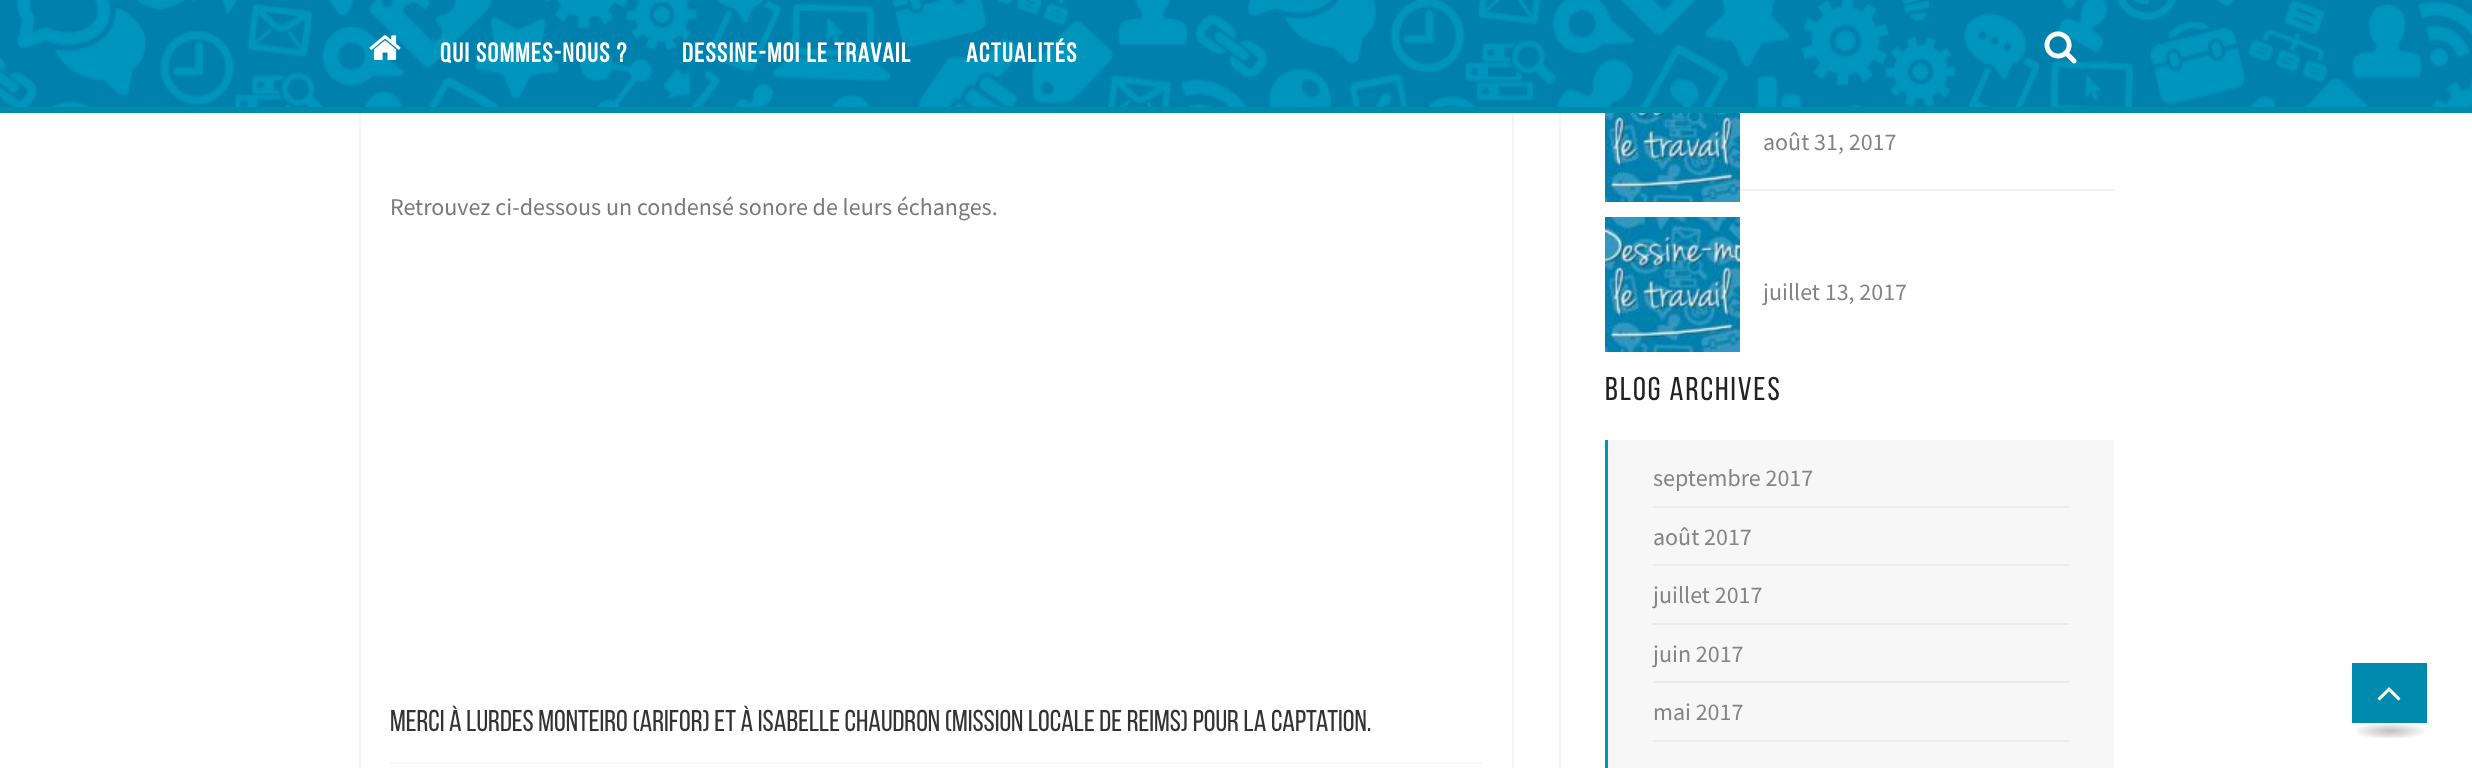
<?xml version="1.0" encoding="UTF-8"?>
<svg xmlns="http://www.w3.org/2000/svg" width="2472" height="768">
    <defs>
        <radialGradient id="g1" gradientUnits="userSpaceOnUse" cx="0" cy="0" r="1" gradientTransform="matrix(48 0 0 11 2390 731)"><stop offset="0" stop-color="#BFBFBF"/><stop offset="0.8" stop-color="#FFFFFF"/></radialGradient>
    </defs>
    <rect width="100%" height="100%" fill="#FFFFFF"/>
    <rect x="360" y="-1" width="1153" height="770" fill="none" stroke="#F4F4F4" stroke-width="2"/>
    <rect x="0" y="107" width="2472" height="6" fill="#008BAE"/>
    <image x="0" y="0" width="2472" height="107" href="img_01.png"/>
    <image x="369" y="35" width="32" height="25" href="img_02.png"/>
    <text x="440" y="62" font-family="Bebas Neue" font-size="26.9" font-weight="700" letter-spacing="1.6" fill="#FFFFFF">QUI SOMMES-NOUS ?</text>
    <text x="682" y="62" font-family="Bebas Neue" font-size="26.9" font-weight="700" letter-spacing="1.6" fill="#FFFFFF">DESSINE-MOI LE TRAVAIL</text>
    <text x="966" y="62" font-family="Bebas Neue" font-size="26.9" font-weight="700" letter-spacing="1.6" fill="#FFFFFF">ACTUALITÉS</text>
    <image x="2044" y="31" width="33" height="33" href="img_03.png"/>
    <text x="390" y="215" font-family="Source Sans Pro" font-size="24" fill="#7A7A7A">Retrouvez ci-dessous un condensé sonore de leurs échanges.</text>
    <text x="390" y="731" font-family="Bebas Neue" font-size="30" fill="#333333">Merci à Lurdes Monteiro (ARIFOR) et à Isabelle Chaudron (Mission locale de Reims) pour la captation.</text>
    <rect x="390" y="762" width="1092" height="2" fill="#F7F7F7"/>
    <rect x="1559" y="113" width="2" height="655" fill="#F4F4F4"/>
    <rect x="1740" y="189" width="374" height="2" fill="#F1F1F1"/>
    <image x="1605" y="113" width="135" height="89" href="img_04.png"/>
    <text x="1763" y="150" font-family="Source Sans Pro" font-size="24" fill="#848484">août 31, 2017</text>
    <image x="1605" y="217" width="135" height="135" href="img_05.png"/>
    <text x="1763" y="300" font-family="Source Sans Pro" font-size="24" fill="#848484">juillet 13, 2017</text>
    <text x="1605" y="400" font-family="Bebas Neue" font-size="33" letter-spacing="2" fill="#222222">Blog Archives</text>
    <rect x="1608" y="440" width="506" height="328" fill="#F7F7F7"/>
    <rect x="1605" y="440" width="3" height="328" fill="#0095BC"/>
    <rect x="1653" y="506" width="416" height="2" fill="#EAEAEA"/>
    <text x="1653" y="486" font-family="Source Sans Pro" font-size="24" fill="#848484">septembre 2017</text>
    <rect x="1653" y="564" width="416" height="2" fill="#EAEAEA"/>
    <text x="1653" y="545" font-family="Source Sans Pro" font-size="24" fill="#848484">août 2017</text>
    <rect x="1653" y="623" width="416" height="2" fill="#EAEAEA"/>
    <text x="1653" y="603" font-family="Source Sans Pro" font-size="24" fill="#848484">juillet 2017</text>
    <rect x="1653" y="681" width="416" height="2" fill="#EAEAEA"/>
    <text x="1653" y="662" font-family="Source Sans Pro" font-size="24" fill="#848484">juin 2017</text>
    <rect x="1653" y="740" width="416" height="2" fill="#EAEAEA"/>
    <text x="1653" y="720" font-family="Source Sans Pro" font-size="24" fill="#848484">mai 2017</text>
    <rect x="2352" y="663" width="75" height="60" fill="#008BAE"/>
    <image x="2377" y="687" width="24" height="14" href="img_06.png"/>
    <rect x="2357" y="723" width="67" height="15" fill="url(#g1)"/>
</svg>
